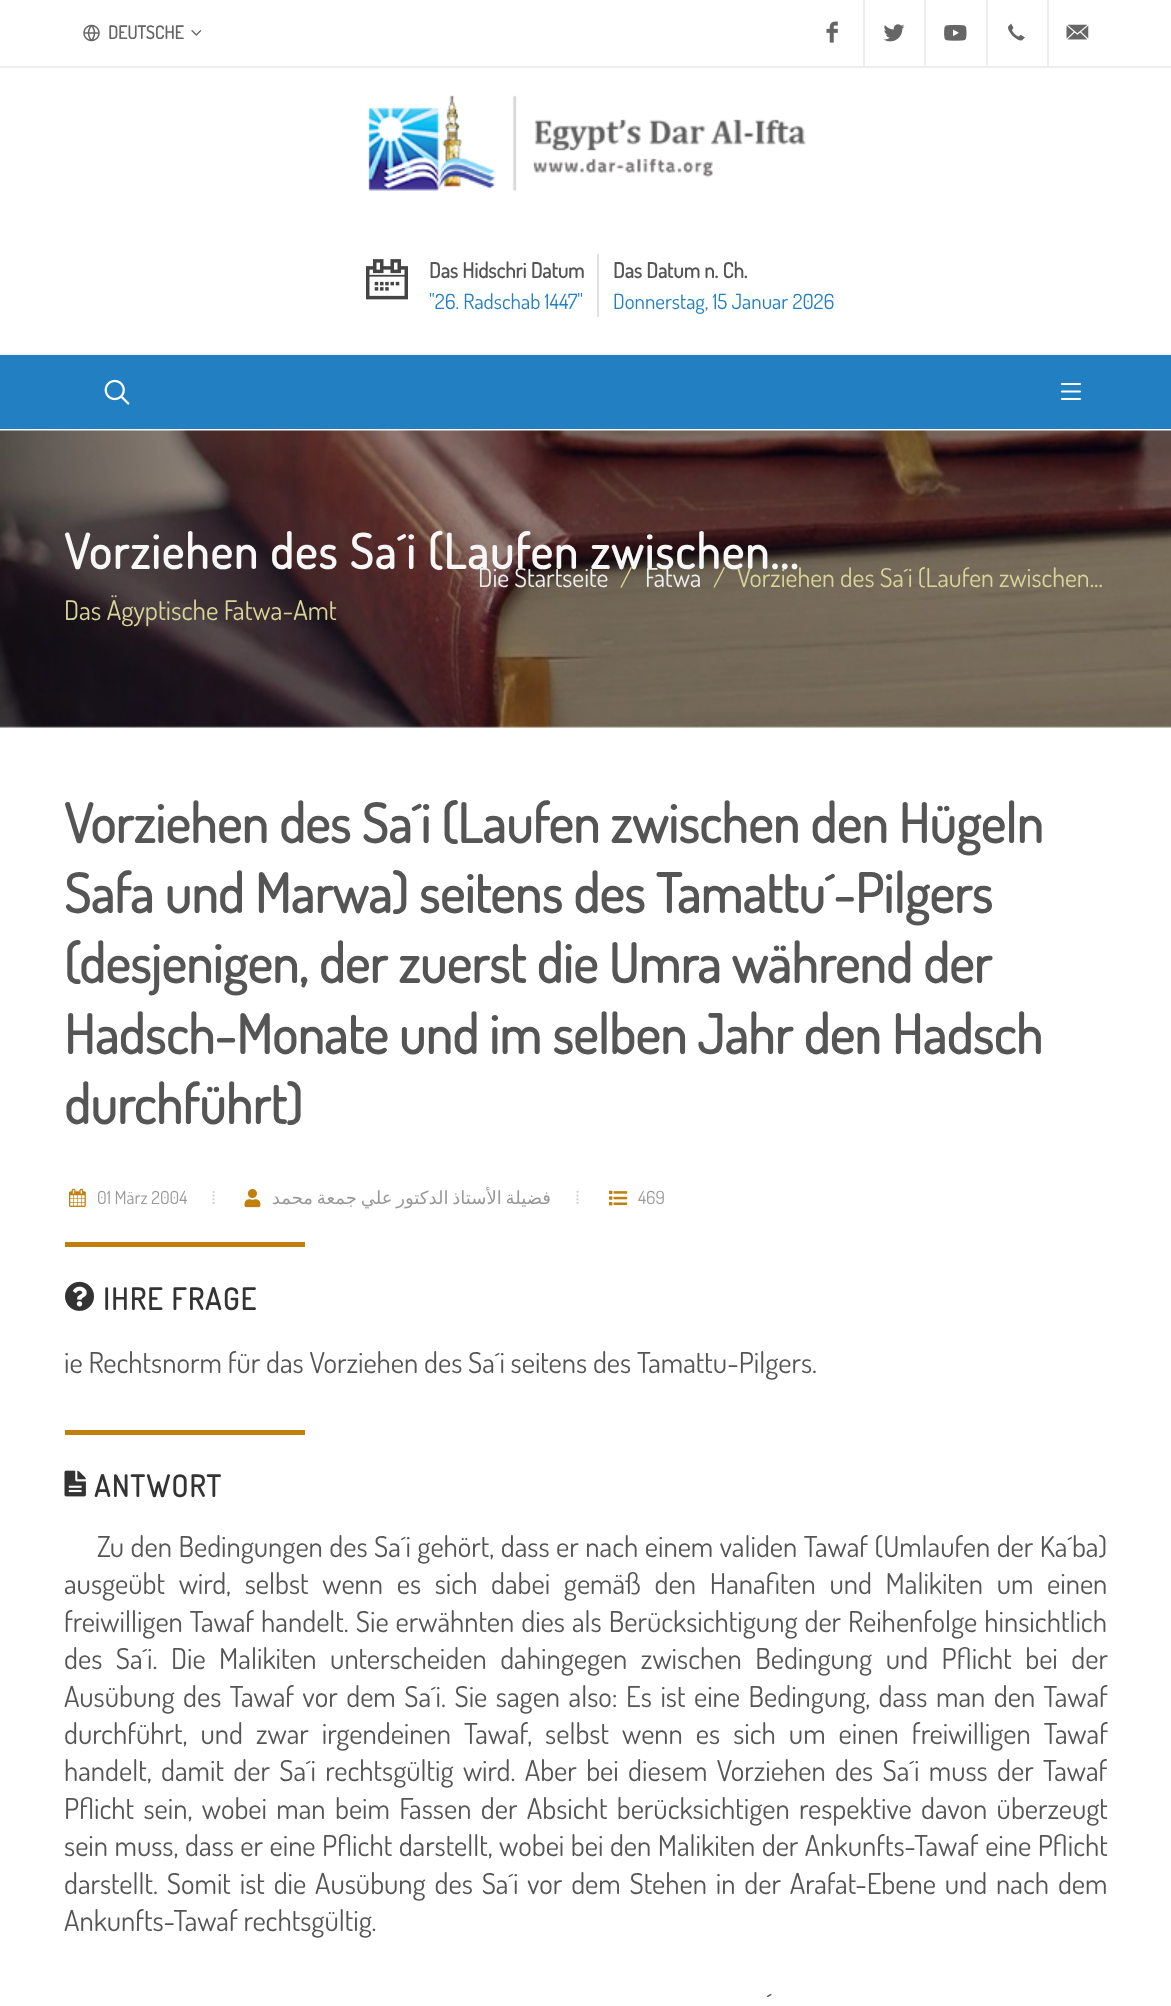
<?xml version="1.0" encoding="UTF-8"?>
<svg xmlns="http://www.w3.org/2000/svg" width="1171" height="2006">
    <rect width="100%" height="100%" fill="#FFFFFF"/>
    <rect x="0" y="66" width="1171" height="2" fill="#EEEEEE"/>
    <image x="83" y="24" width="17" height="18" href="img_01.png"/>
    <text x="108" y="39" font-family="Dosis" font-size="18" font-weight="700" fill="#666666">DEUTSCHE</text>
    <image x="191" y="30" width="11" height="6" href="img_02.png"/>
    <image x="826" y="21" width="12" height="22" href="img_03.png"/>
    <rect x="863" y="0" width="2" height="66" fill="#EEEEEE"/>
    <image x="883" y="24" width="22" height="18" href="img_04.png"/>
    <rect x="924" y="0" width="2" height="66" fill="#EEEEEE"/>
    <image x="944" y="24" width="23" height="17" href="img_05.png"/>
    <rect x="986" y="0" width="2" height="66" fill="#EEEEEE"/>
    <image x="1008" y="23" width="17" height="18" href="img_06.png"/>
    <rect x="1047" y="0" width="2" height="66" fill="#EEEEEE"/>
    <image x="1066" y="24" width="23" height="16" href="img_07.png"/>
    <rect x="0" y="429" width="1171" height="2" fill="#F5F5F5"/>
    <image x="368" y="95" width="438" height="96" href="img_08.png"/>
    <image x="366" y="259" width="42" height="41" href="img_09.png"/>
    <text x="429" y="278" font-family="Dosis" font-size="21" font-weight="700" fill="#555555">Das Hidschri Datum</text>
    <text x="429" y="309" font-family="Dosis" font-size="21" fill="#217FC2">"26. Radschab 1447"</text>
    <rect x="597" y="254" width="2" height="63" fill="#DEE2E6"/>
    <text x="613" y="278" font-family="Dosis" font-size="21" font-weight="700" fill="#555555">Das Datum n. Ch.</text>
    <text x="613" y="309" font-family="Dosis" font-size="21" fill="#217FC2">Donnerstag, 15 Januar 2026</text>
    <rect x="0" y="355" width="1171" height="74" fill="#217FC2"/>
    <rect x="0" y="353" width="1171" height="2" fill="#F5F5F5"/>
    <image x="104" y="379" width="26" height="26" href="img_10.png"/>
    <path d="M 1062 384 H 1080 M 1062 391.5 H 1080 M 1080 399 H 1062" fill="none" stroke="#FFFFFF" stroke-width="2.2" stroke-linecap="round"/>
    <image x="0" y="430" width="1171" height="298" href="img_11.png"/>
    <rect x="0" y="726" width="1171" height="2" fill="#FFFFFF" fill-opacity="0.15"/>
    <text x="64" y="569" font-family="Dosis" font-size="48" font-weight="700" letter-spacing="1.5" fill="#F7F7F7">Vorziehen des Sa´i (Laufen zwischen...</text>
    <text x="478" y="587" font-family="Dosis" font-size="25.9" fill="#EEEEEE">Die Startseite</text>
    <text x="620" y="587" font-family="Dosis" font-size="25.9" fill="#D8D599">/</text>
    <text x="645" y="587" font-family="Dosis" font-size="25.9" fill="#EEEEEE">Fatwa</text>
    <text x="713" y="587" font-family="Dosis" font-size="25.9" fill="#D8D599">/</text>
    <text x="737" y="587" font-family="Dosis" font-size="25.9" fill="#D8D599">Vorziehen des Sa´i (Laufen zwischen...</text>
    <text x="64" y="620" font-family="Dosis" font-size="27" fill="#D8D599">Das Ägyptische Fatwa-Amt</text>
    <text font-family="Dosis" font-size="54" font-weight="700" fill="#555555">
        <tspan x="64" y="843">Vorziehen des Sa´i (Laufen zwischen den Hügeln</tspan>
        <tspan x="64" y="913">Safa und Marwa) seitens des Tamattu´-Pilgers</tspan>
        <tspan x="64" y="983">(desjenigen, der zuerst die Umra während der</tspan>
        <tspan x="64" y="1054">Hadsch-Monate und im selben Jahr den Hadsch</tspan>
        <tspan x="64" y="1124">durchführt)</tspan>
    </text>
    <image x="69" y="1188" width="17" height="19" href="img_12.png"/>
    <text x="97" y="1204" font-family="Dosis" font-size="18.1" fill="#999999">01 März 2004</text>
    <text x="211" y="1204" font-family="Liberation Sans" font-size="18.1" fill="#CCCCCC">⁞</text>
    <image x="244" y="1189" width="17" height="19" href="img_13.png"/>
    <text x="551" y="1204" word-spacing="-2" font-family="DejaVu Sans" font-size="18.1" direction="rtl" fill="#999999">فضيلة الأستاذ الدكتور علي جمعة محمد</text>
    <text x="575" y="1204" font-family="Liberation Sans" font-size="18.1" fill="#CCCCCC">⁞</text>
    <image x="609" y="1190" width="19" height="16" href="img_14.png"/>
    <text x="638" y="1204" font-family="Dosis" font-size="18.1" fill="#999999">469</text>
    <rect x="65" y="1242" width="240" height="5" fill="#C17F0E"/>
    <image x="65" y="1281" width="29" height="30" href="img_15.png"/>
    <text x="103" y="1310" font-family="Dosis" font-size="30" font-weight="700" letter-spacing="1.5" fill="#333333">IHRE FRAGE</text>
    <text x="64" y="1373" font-family="Dosis" font-size="28.8" fill="#555555">ie Rechtsnorm für das Vorziehen des Sa´i seitens des Tamattu-Pilgers.</text>
    <rect x="65" y="1430" width="240" height="5" fill="#C17F0E"/>
    <image x="64" y="1470" width="22" height="27" href="img_16.png"/>
    <text x="94" y="1497" font-family="Dosis" font-size="30" font-weight="700" letter-spacing="1.5" fill="#333333">ANTWORT</text>
    <text x="97" y="1557" word-spacing="0.75" font-family="Dosis" font-size="28.8" fill="#555555">Zu den Bedingungen des Sa´i gehört, dass er nach einem validen Tawaf (Umlaufen der Ka´ba)</text>
    <text font-family="Dosis" font-size="28.8" fill="#555555">
        <tspan x="64" y="1594" word-spacing="7.9">ausgeübt wird, selbst wenn es sich dabei gemäß den Hanafiten und Malikiten um einen</tspan>
        <tspan x="64" y="1632" word-spacing="1.25">freiwilligen Tawaf handelt. Sie erwähnten dies als Berücksichtigung der Reihenfolge hinsichtlich</tspan>
        <tspan x="64" y="1669" word-spacing="7.75">des Sa´i. Die Malikiten unterscheiden dahingegen zwischen Bedingung und Pflicht bei der</tspan>
        <tspan x="64" y="1707" word-spacing="2.75">Ausübung des Tawaf vor dem Sa´i. Sie sagen also: Es ist eine Bedingung, dass man den Tawaf</tspan>
        <tspan x="64" y="1744" word-spacing="7.25">durchführt, und zwar irgendeinen Tawaf, selbst wenn es sich um einen freiwilligen Tawaf</tspan>
        <tspan x="64" y="1781" word-spacing="3.6">handelt, damit der Sa´i rechtsgültig wird. Aber bei diesem Vorziehen des Sa´i muss der Tawaf</tspan>
        <tspan x="64" y="1819" word-spacing="3.6">Pflicht sein, wobei man beim Fassen der Absicht berücksichtigen respektive davon überzeugt</tspan>
        <tspan x="64" y="1856" word-spacing="0.75">sein muss, dass er eine Pflicht darstellt, wobei bei den Malikiten der Ankunfts-Tawaf eine Pflicht</tspan>
        <tspan x="64" y="1894" word-spacing="3.1">darstellt. Somit ist die Ausübung des Sa´i vor dem Stehen in der Arafat-Ebene und nach dem</tspan>
        <tspan x="64" y="1931">Ankunfts-Tawaf rechtsgültig.</tspan>
    </text>
    <text x="767" y="2014" word-spacing="4" font-family="Dosis" font-size="28.8" fill="#555555">´</text>
</svg>
